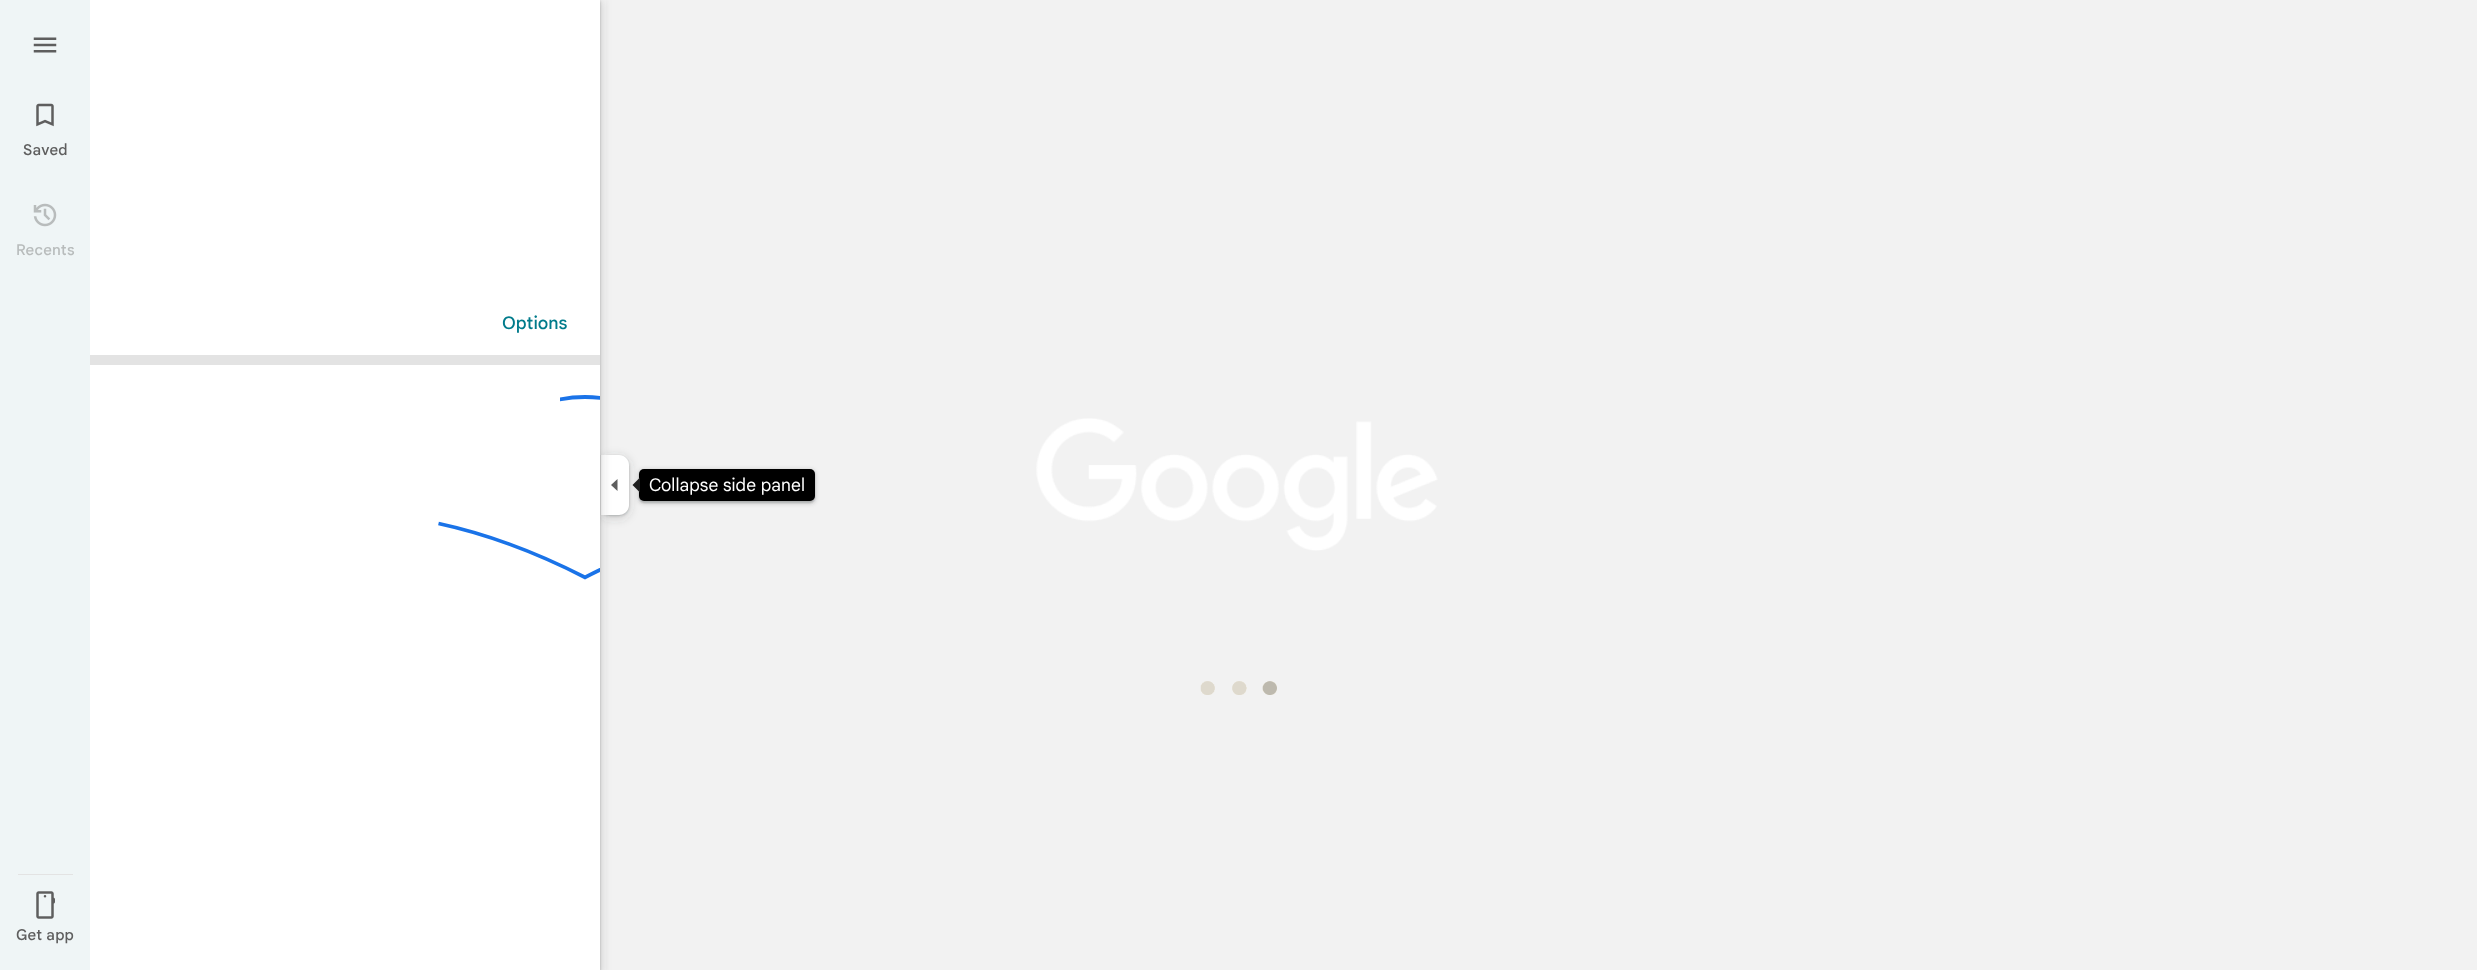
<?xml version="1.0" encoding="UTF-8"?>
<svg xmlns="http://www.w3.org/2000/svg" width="2477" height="970">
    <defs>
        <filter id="blur1" x="-50%" y="-200%" width="200%" height="500%"><feGaussianBlur stdDeviation="4"/></filter>
        <filter id="blur2" x="-50%" y="-200%" width="200%" height="500%"><feGaussianBlur stdDeviation="1"/></filter>
        <clipPath id="clip1"><rect x="560" y="395" width="40" height="575"/></clipPath>
        <clipPath id="clip2"><rect x="330" y="395" width="255" height="575"/></clipPath>
        <clipPath id="clip3"><rect x="585" y="395" width="15" height="575"/></clipPath>
        <filter id="blur3" x="-50%" y="-200%" width="200%" height="500%"><feGaussianBlur stdDeviation="2"/></filter>
    </defs>
    <rect width="100%" height="100%" fill="#F2F2F2"/>
    <rect x="598" y="455" width="33" height="65" rx="13" fill="#3C4043" fill-opacity="0.15" filter="url(#blur1)"/>
    <rect x="600" y="456" width="29" height="60" rx="10" fill="#3C4043" fill-opacity="0.3" filter="url(#blur2)"/>
    <path d="M 600 455 H 619 C 624.5 455 629 459.5 629 465 V 505 C 629 510.5 624.5 515 619 515 H 600 Z" fill="#FFFFFF"/>
    <rect x="600" y="455" width="1" height="60" fill="#E3E3E3"/>
    <path d="M 617.5 491 L 611 485 L 617.5 479 Z" fill="#5E5E5E"/>
    <rect x="88" y="0" width="515" height="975" fill="#3C4043" fill-opacity="0.15" filter="url(#blur1)"/>
    <rect x="90" y="1" width="510" height="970" fill="#3C4043" fill-opacity="0.3" filter="url(#blur2)"/>
    <rect x="0" y="0" width="90" height="970" fill="#EFF5F6"/>
    <image x="33" y="37" width="24" height="16" href="img_01.png"/>
    <image x="36" y="103" width="18" height="24" href="img_02.png"/>
    <text x="23" y="155" font-family="Google Sans" font-size="15" font-weight="500" letter-spacing="0.25" fill="#5E5E5E">Saved</text>
    <image x="33" y="203" width="24" height="24" href="img_03.png"/>
    <text x="16" y="255" font-family="Google Sans" font-size="15" font-weight="500" letter-spacing="0.25" fill="#B8BCBC">Recents</text>
    <rect x="18" y="874" width="55" height="1" fill="#E3E3E3"/>
    <image x="36" y="891" width="19" height="28" href="img_04.png"/>
    <text x="16" y="940" font-family="Google Sans" font-size="15" font-weight="500" letter-spacing="0.25" fill="#5E5E5E">Get app</text>
    <rect x="90" y="0" width="510" height="970" fill="#FFFFFF"/>
    <rect x="90" y="355" width="510" height="10" fill="#E3E3E3"/>
    <text x="502" y="329" font-family="Google Sans" font-size="17.5" font-weight="500" letter-spacing="0.1" fill="#007B8B">Options</text>
    <g clip-path="url(#clip1)">
        <path d="M 406 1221.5 C 358.5 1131 332 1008 332 880 C 332 752 358.5 629 406 538.5 C 453.5 448 518 397 585 397 C 652 397 716.5 448 764 538.5 C 811.5 629 838 752 838 880 C 838 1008 811.5 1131 764 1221.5" fill="none" stroke="#1A73E8" stroke-width="3.8"/>
    </g>
    <g clip-path="url(#clip2)">
        <path d="M 438.5 523.5 C 538.5 545 649.5 603.5 747.5 686 C 846 768.5 923 868 961.5 962.5 C 1000.5 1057 998 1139 955 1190.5 C 912 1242 831.5 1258.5 731.5 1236.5" fill="none" stroke="#1A73E8" stroke-width="3.7"/>
    </g>
    <g clip-path="url(#clip3)">
        <path d="M 438.5 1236.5 C 338.5 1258.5 258 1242 215 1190.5 C 172 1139 169.5 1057 208.5 962.5 C 247 868 324 768.5 422.5 686 C 520.5 603.5 631.5 545 731.5 523.5" fill="none" stroke="#1A73E8" stroke-width="3.7"/>
    </g>
    <rect x="638" y="469" width="178" height="35" rx="6" fill="#3C4043" fill-opacity="0.15" filter="url(#blur3)"/>
    <rect x="639" y="470" width="176" height="33" rx="5" fill="#3C4043" fill-opacity="0.3" filter="url(#blur2)"/>
    <rect x="639" y="469" width="176" height="32" rx="5" fill="#000000"/>
    <path d="M 640 477.5 V 492.5 L 632.5 485 Z" fill="#1F1F1F"/>
    <text x="649" y="491" font-family="Google Sans" font-size="17.5" letter-spacing="0.1" fill="#FFFFFF">Collapse side panel</text>
    <image x="1036" y="418" width="402" height="133" href="img_05.png"/>
    <image x="1200" y="681" width="77" height="14" href="img_06.png"/>
</svg>
